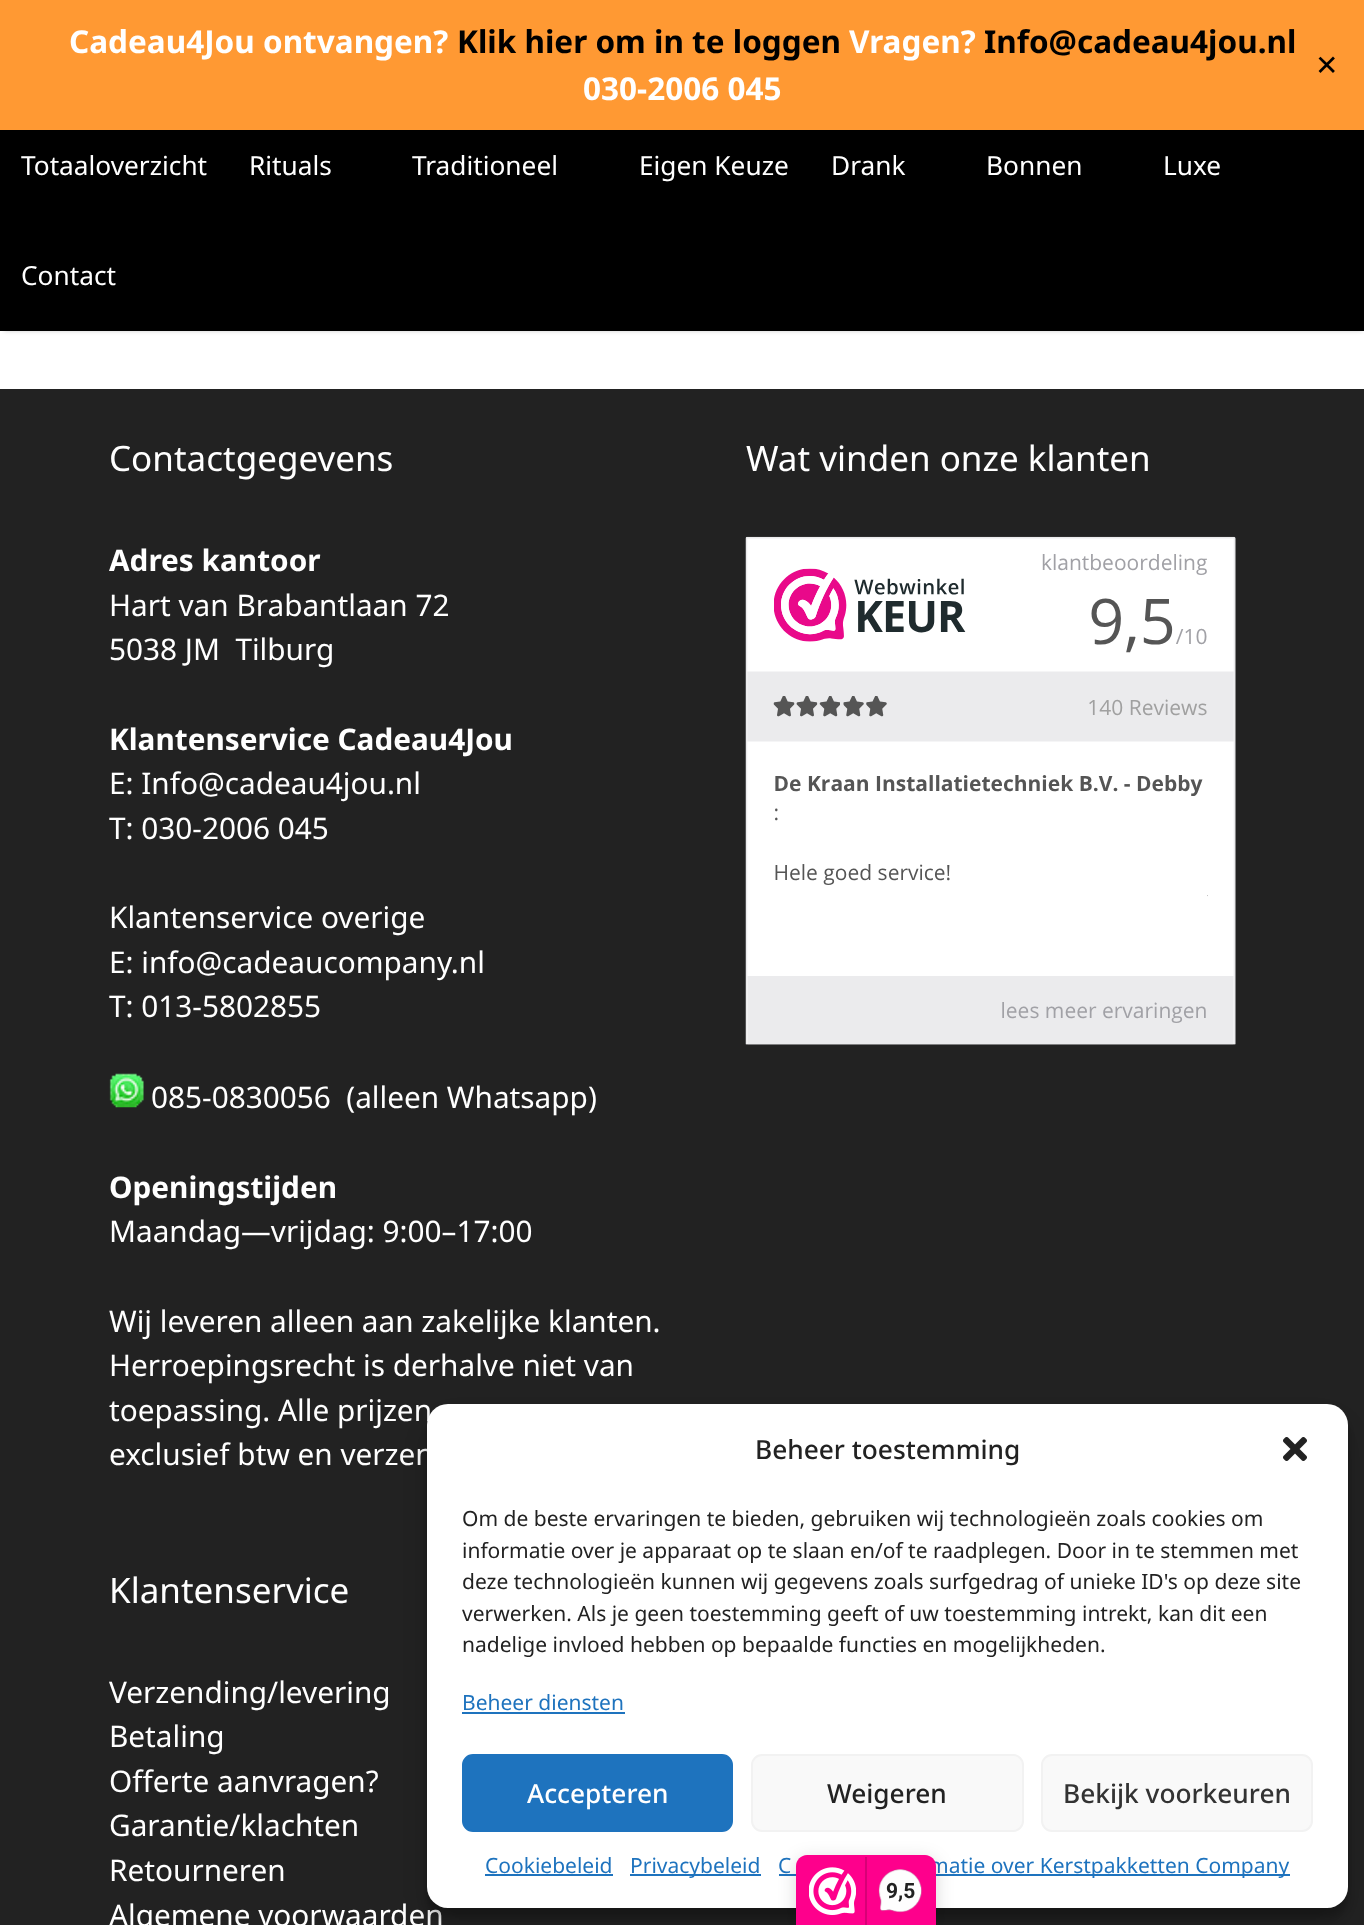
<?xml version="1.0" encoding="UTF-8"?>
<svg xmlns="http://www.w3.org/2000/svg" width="1364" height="1925">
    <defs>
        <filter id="blur1" x="-50%" y="-200%" width="200%" height="500%"><feGaussianBlur stdDeviation="2"/></filter>
        <filter id="blur2" x="-50%" y="-200%" width="200%" height="500%"><feGaussianBlur stdDeviation="5"/></filter>
        <filter id="blur3" x="-50%" y="-200%" width="200%" height="500%"><feGaussianBlur stdDeviation="17.5"/></filter>
        <filter id="blur4" x="-50%" y="-200%" width="200%" height="500%"><feGaussianBlur stdDeviation="9"/></filter>
    </defs>
    <rect width="100%" height="100%" fill="#FFFFFF"/>
    <rect x="4" y="7" width="1358" height="324" fill="#000000" fill-opacity="0.2" filter="url(#blur1)"/>
    <rect x="0" y="0" width="1364" height="130" fill="#FF9933"/>
    <text x="69" y="53" font-family="Noto Sans" font-size="31.5" font-weight="700" fill="#FFFFFF">Cadeau4Jou ontvangen?</text>
    <text x="457" y="53" font-family="Noto Sans" font-size="31.5" font-weight="700" fill="#000000">Klik hier om in te loggen</text>
    <text x="849" y="53" font-family="Noto Sans" font-size="31.5" font-weight="700" fill="#FFFFFF">Vragen?</text>
    <text x="984" y="53" font-family="Noto Sans" font-size="31.5" font-weight="700" fill="#000000">Info@cadeau4jou.nl</text>
    <text x="583" y="100" font-family="Noto Sans" font-size="31.5" font-weight="700" fill="#FFFFFF">030-2006 045</text>
    <text x="1315" y="75" font-family="DejaVu Sans" font-size="28" fill="#000000">✕</text>
    <rect x="0" y="130" width="1364" height="201" fill="#000000"/>
    <text x="21" y="175" font-family="Noto Sans" font-size="26.25" fill="#FFFFFF">Totaaloverzicht</text>
    <text x="249" y="175" font-family="Noto Sans" font-size="26.25" fill="#FFFFFF">Rituals</text>
    <text x="412" y="175" font-family="Noto Sans" font-size="26.25" fill="#FFFFFF">Traditioneel</text>
    <text x="639" y="175" font-family="Noto Sans" font-size="26.25" fill="#FFFFFF">Eigen Keuze</text>
    <text x="831" y="175" font-family="Noto Sans" font-size="26.25" fill="#FFFFFF">Drank</text>
    <text x="986" y="175" font-family="Noto Sans" font-size="26.25" fill="#FFFFFF">Bonnen</text>
    <text x="1163" y="175" font-family="Noto Sans" font-size="26.25" fill="#FFFFFF">Luxe</text>
    <text x="21" y="285" font-family="Noto Sans" font-size="26.25" fill="#FFFFFF">Contact</text>
    <rect x="0" y="389" width="1364" height="1536" fill="#222222"/>
    <text x="109" y="471" font-family="Noto Sans" font-size="35" fill="#FFFFFF">Contactgegevens</text>
    <text x="109" y="571" font-family="Noto Sans" font-size="29.75" font-weight="700" fill="#FFFFFF">Adres kantoor</text>
    <text font-family="Noto Sans" font-size="29.75" fill="#FFFFFF" xml:space="preserve"><tspan x="109" y="616">Hart van Brabantlaan 72</tspan><tspan x="109" y="660">5038 JM  Tilburg</tspan></text>
    <text x="109" y="750" font-family="Noto Sans" font-size="29.75" font-weight="700" fill="#FFFFFF">Klantenservice Cadeau4Jou</text>
    <text font-family="Noto Sans" font-size="29.75" fill="#FFFFFF">
        <tspan x="109" y="794">E: Info@cadeau4jou.nl</tspan>
        <tspan x="109" y="839">T: 030-2006 045</tspan>
    </text>
    <text font-family="Noto Sans" font-size="29.75" fill="#FFFFFF">
        <tspan x="109" y="928">Klantenservice overige</tspan>
        <tspan x="109" y="973">E: info@cadeaucompany.nl</tspan>
        <tspan x="109" y="1017">T: 013-5802855</tspan>
    </text>
    <image x="109" y="1073" width="35" height="35" href="img_01.png"/>
    <text x="151" y="1108" font-family="Noto Sans" font-size="29.75" fill="#FFFFFF" xml:space="preserve">085-0830056  (alleen Whatsapp)</text>
    <text x="109" y="1198" font-family="Noto Sans" font-size="29.75" font-weight="700" fill="#FFFFFF">Openingstijden</text>
    <text x="109" y="1242" font-family="Noto Sans" font-size="29.75" fill="#FFFFFF">Maandag—vrijdag: 9:00–17:00</text>
    <text font-family="Noto Sans" font-size="29.75" fill="#FFFFFF">
        <tspan x="109" y="1332">Wij leveren alleen aan zakelijke klanten.</tspan>
        <tspan x="109" y="1376">Herroepingsrecht is derhalve niet van</tspan>
        <tspan x="109" y="1421">toepassing. Alle prijzen</tspan>
        <tspan x="109" y="1465">exclusief btw en verzen</tspan>
    </text>
    <text x="746" y="471" font-family="Noto Sans" font-size="35" fill="#FFFFFF">Wat vinden onze klanten</text>
    <image x="745" y="536" width="491" height="509" href="img_02.png"/>
    <text x="109" y="1603" font-family="Noto Sans" font-size="35" fill="#FFFFFF">Klantenservice</text>
    <text font-family="Noto Sans" font-size="29.75" fill="#FFFFFF">
        <tspan x="109" y="1703">Verzending/levering</tspan>
        <tspan x="109" y="1747">Betaling</tspan>
        <tspan x="109" y="1792">Offerte aanvragen?</tspan>
        <tspan x="109" y="1836">Garantie/klachten</tspan>
        <tspan x="109" y="1881">Retourneren</tspan>
        <tspan x="109" y="1926">Algemene voorwaarden</tspan>
    </text>
    <rect x="427" y="1414" width="921" height="504" rx="21" fill="#000000" fill-opacity="0.23" filter="url(#blur2)"/>
    <rect x="427" y="1421" width="921" height="504" rx="21" fill="#000000" fill-opacity="0.19" filter="url(#blur3)"/>
    <rect x="427" y="1404" width="921" height="504" rx="21" fill="#FFFFFF"/>
    <text x="755" y="1459" font-family="Noto Sans" font-size="26.25" font-weight="500" fill="#222222">Beheer toestemming</text>
    <image x="1283" y="1437" width="24" height="24" href="img_03.png"/>
    <text font-family="Noto Sans" font-size="21" fill="#222222">
        <tspan x="462" y="1526">Om de beste ervaringen te bieden, gebruiken wij technologieën zoals cookies om</tspan>
        <tspan x="462" y="1558">informatie over je apparaat op te slaan en/of te raadplegen. Door in te stemmen met</tspan>
        <tspan x="462" y="1589">deze technologieën kunnen wij gegevens zoals surfgedrag of unieke ID's op deze site</tspan>
        <tspan x="462" y="1621">verwerken. Als je geen toestemming geeft of uw toestemming intrekt, kan dit een</tspan>
        <tspan x="462" y="1652">nadelige invloed hebben op bepaalde functies en mogelijkheden.</tspan>
    </text>
    <text x="462" y="1710" font-family="Noto Sans" font-size="21" fill="#1E73BE">Beheer diensten</text>
    <rect x="462" y="1712" width="163" height="2" fill="#1E73BE"/>
    <rect x="463" y="1755" width="269" height="76" rx="10" fill="#1E73BE" stroke="#1E73BE" stroke-width="2"/>
    <text x="527" y="1803" font-family="Noto Sans" font-size="26.25" font-weight="500" fill="#FFFFFF">Accepteren</text>
    <rect x="752" y="1755" width="271" height="76" rx="10" fill="#F9F9F9" stroke="#F2F2F2" stroke-width="2"/>
    <text x="827" y="1803" font-family="Noto Sans" font-size="26.25" font-weight="500" fill="#222222">Weigeren</text>
    <rect x="1042" y="1755" width="270" height="76" rx="10" fill="#F9F9F9" stroke="#F2F2F2" stroke-width="2"/>
    <text x="1063" y="1803" font-family="Noto Sans" font-size="26.25" font-weight="500" fill="#333333">Bekijk voorkeuren</text>
    <text x="485" y="1873" font-family="Noto Sans" font-size="21" fill="#1E73BE">Cookiebeleid</text>
    <rect x="485" y="1874" width="128" height="2" fill="#1E73BE"/>
    <rect x="630" y="1874" width="131" height="2" fill="#1E73BE"/>
    <text x="630" y="1873" font-family="Noto Sans" font-size="21" fill="#1E73BE">Privacybeleid</text>
    <text x="778" y="1873" font-family="Noto Sans" font-size="21" fill="#1E73BE">C</text>
    <rect x="779" y="1874" width="511" height="2" fill="#1E73BE"/>
    <text x="929" y="1873" font-family="Noto Sans" font-size="21" fill="#1E73BE">matie over Kerstpakketten Company</text>
    <rect x="796" y="1859" width="140" height="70" rx="11" fill="#000000" fill-opacity="0.15" filter="url(#blur4)"/>
    <path d="M 807 1855 H 925 C 931 1855 936 1860 936 1866 V 1925 H 796 V 1866 C 796 1860 801 1855 807 1855 Z" fill="#FE008C"/>
    <image x="809" y="1867" width="47" height="48" href="img_04.png"/>
    <rect x="865" y="1857" width="2" height="68" fill="#D80077"/>
    <image x="878" y="1869" width="45" height="44" href="img_05.png"/>
    <text x="886" y="1898" font-family="Roboto" font-size="21" font-weight="700" fill="#222222">9,5</text>
</svg>
